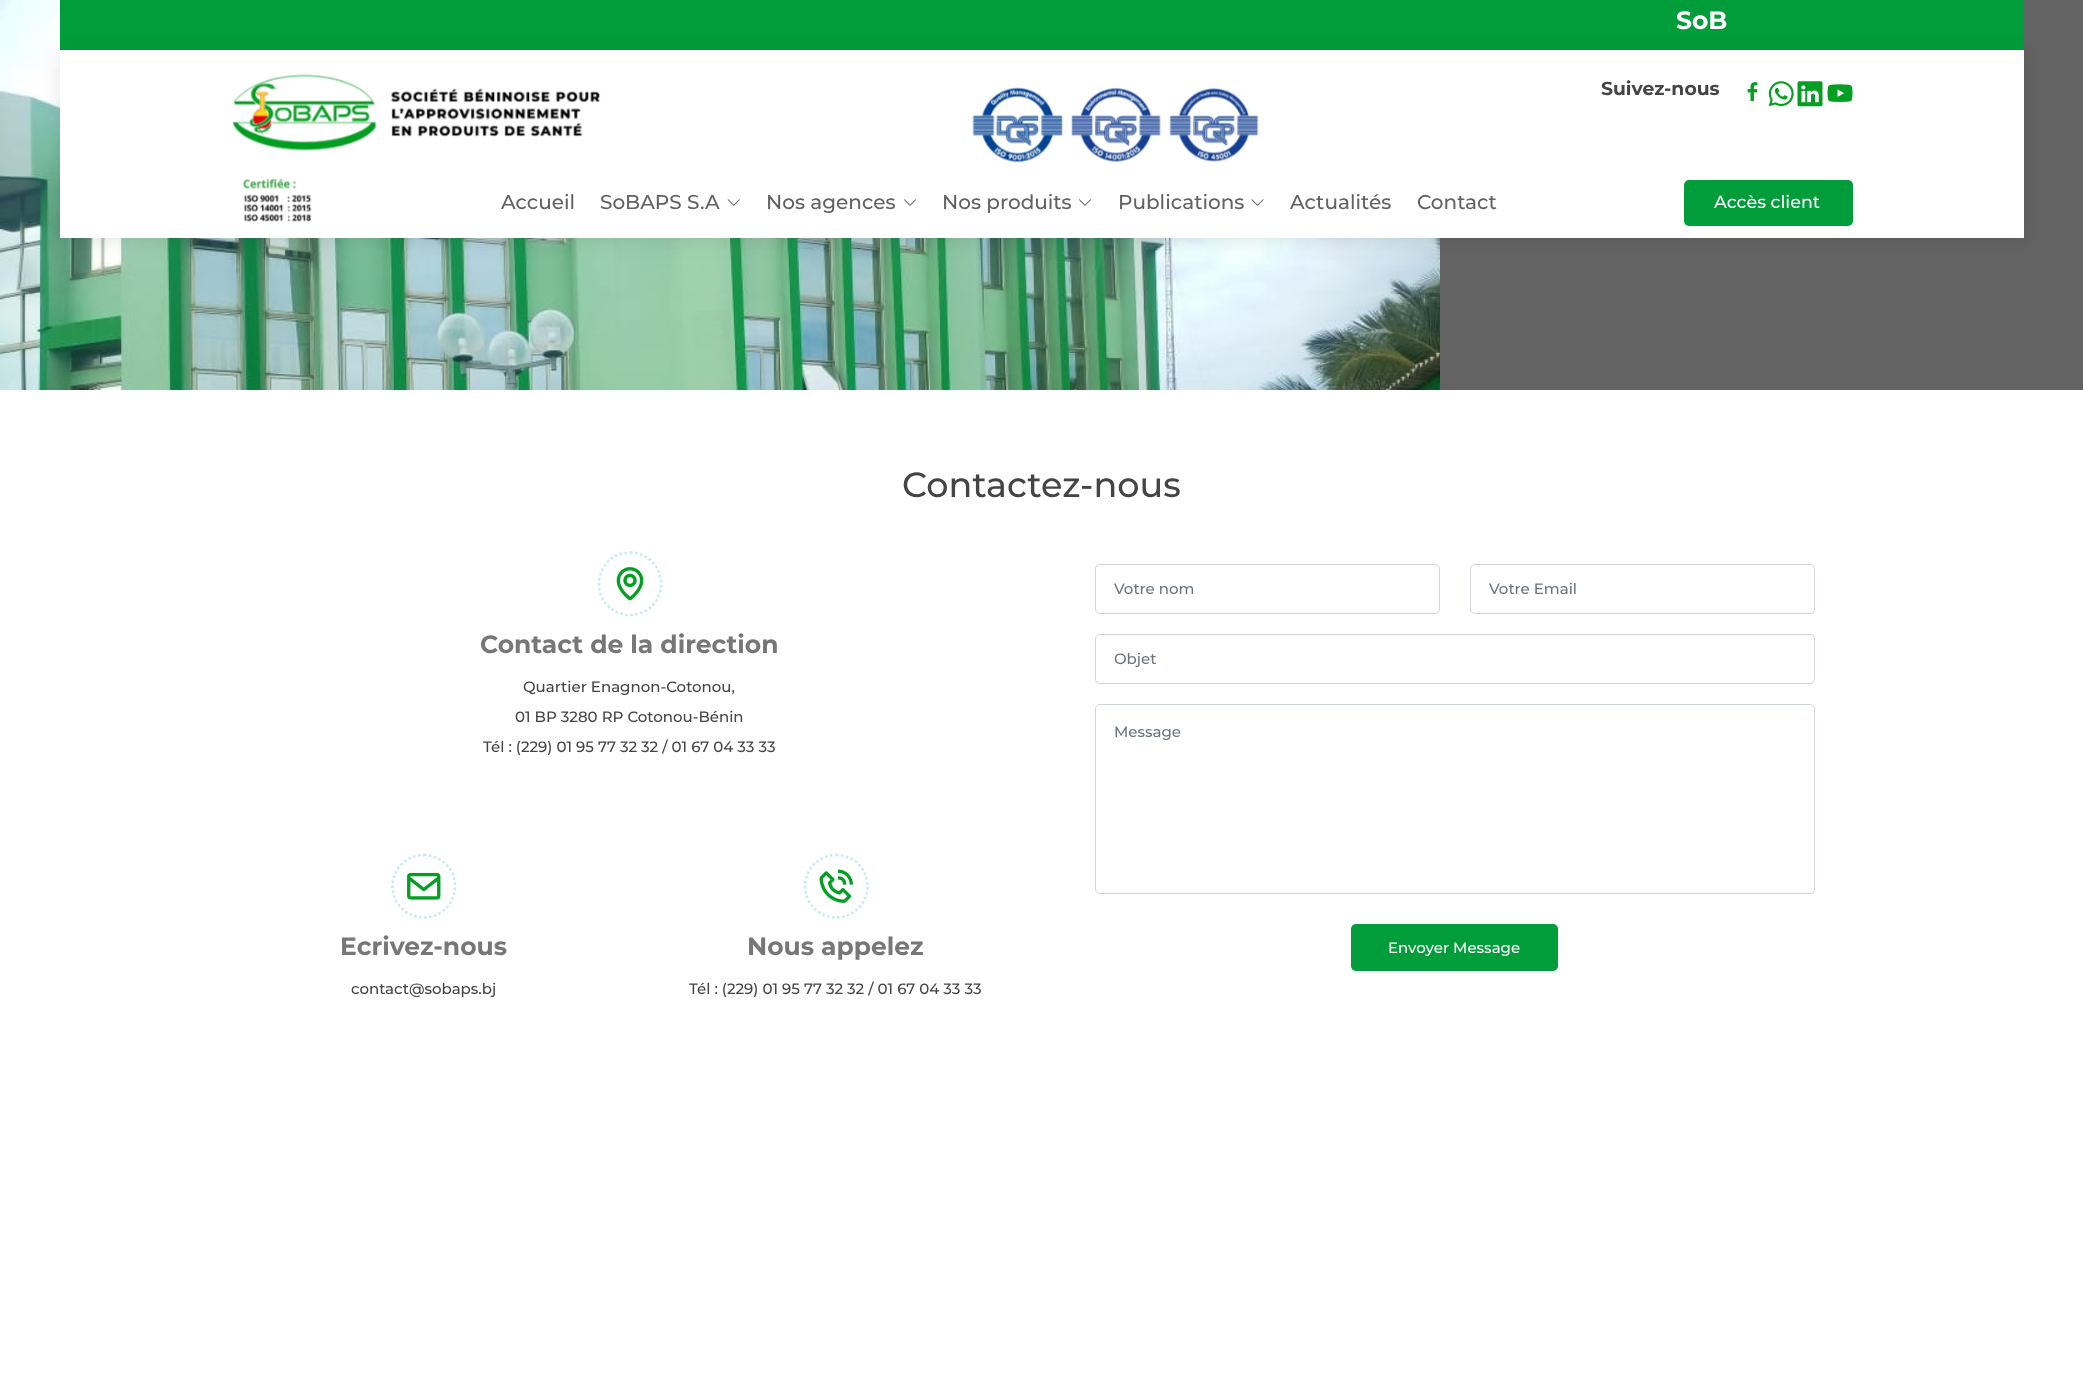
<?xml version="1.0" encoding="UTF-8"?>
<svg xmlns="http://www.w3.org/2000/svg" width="2083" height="1391">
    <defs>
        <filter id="blur1" x="-50%" y="-200%" width="200%" height="500%"><feGaussianBlur stdDeviation="9.5"/></filter>
    </defs>
    <rect width="100%" height="100%" fill="#FFFFFF"/>
    <rect x="1440" y="0" width="643" height="390" fill="#636363"/>
    <image x="0" y="0" width="1440" height="390" href="img_01.png"/>
    <rect x="60" y="0" width="1964" height="50" fill="#009D3A"/>
    <text x="1676" y="29" font-family="Montserrat" font-size="25" font-weight="700" fill="#FFFFFF">SoB</text>
    <rect x="60" y="53" width="1964" height="187" fill="#000000" fill-opacity="0.1" filter="url(#blur1)"/>
    <rect x="60" y="50" width="1964" height="188" fill="#FFFFFF"/>
    <image x="232" y="74" width="369" height="77" href="img_02.png"/>
    <image x="972" y="87" width="287" height="76" href="img_03.png"/>
    <text x="1601" y="95" font-family="Montserrat" font-size="18.75" font-weight="700" fill="#444444">Suivez-nous</text>
    <image x="1747" y="82" width="11" height="19" href="img_04.png"/>
    <image x="1768" y="81" width="26" height="26" href="img_05.png"/>
    <image x="1797" y="81" width="26" height="26" href="img_06.png"/>
    <image x="1827" y="84" width="26" height="18" href="img_07.png"/>
    <image x="242" y="178" width="70" height="44" href="img_08.png"/>
    <text x="501" y="209" font-family="Montserrat" font-size="20" font-weight="500" fill="#626262">Accueil</text>
    <text x="600" y="209" font-family="Montserrat" font-size="20" font-weight="500" fill="#626262">SoBAPS S.A</text>
    <image x="727" y="199" width="13" height="7" href="img_09.png"/>
    <text x="766" y="209" font-family="Montserrat" font-size="20" font-weight="500" fill="#626262">Nos agences</text>
    <image x="904" y="199" width="12" height="7" href="img_10.png"/>
    <text x="942" y="209" font-family="Montserrat" font-size="20" font-weight="500" fill="#626262">Nos produits</text>
    <image x="1079" y="199" width="12" height="7" href="img_10.png"/>
    <text x="1118" y="209" font-family="Montserrat" font-size="20" font-weight="500" fill="#626262">Publications</text>
    <image x="1251" y="199" width="13" height="7" href="img_11.png"/>
    <text x="1290" y="209" font-family="Montserrat" font-size="20" font-weight="500" fill="#626262">Actualités</text>
    <text x="1417" y="209" font-family="Montserrat" font-size="20" font-weight="500" fill="#626262">Contact</text>
    <rect x="1684" y="180" width="169" height="46" rx="5" fill="#009D3A"/>
    <text x="1714" y="208" font-family="Montserrat" font-size="17.5" font-weight="500" fill="#FFFFFF">Accès client</text>
    <text x="902" y="497" font-family="Montserrat" font-size="35" font-weight="500" fill="#444444">Contactez-nous</text>
    <path d="M 630 552.5 C 647.5 552.5 661 566.5 661 584 C 661 601 647.5 615 630 615 C 612.5 615 599 601 599 584 C 599 566.5 612.5 552.5 630 552.5 Z" fill="none" stroke="#C5EBEC" stroke-width="2.5" stroke-dasharray="2.5 2.5"/>
    <image x="616" y="567" width="28" height="34" href="img_12.png"/>
    <text x="480" y="653" font-family="Montserrat" font-size="25" font-weight="700" fill="#777777">Contact de la direction</text>
    <text x="523" y="692" font-family="Montserrat" font-size="15" font-weight="500" fill="#444444">Quartier Enagnon-Cotonou,</text>
    <text x="515" y="722" font-family="Montserrat" font-size="15" font-weight="500" fill="#444444">01 BP 3280 RP Cotonou-Bénin</text>
    <text x="483" y="752" font-family="Montserrat" font-size="15" font-weight="500" fill="#444444">Tél : (229) 01 95 77 32 32 / 01 67 04 33 33</text>
    <path d="M 424 855 C 441 855 455 869 455 886 C 455 903.5 441 917.5 424 917.5 C 406.5 917.5 392.5 903.5 392.5 886 C 392.5 869 406.5 855 424 855 Z" fill="none" stroke="#C5EBEC" stroke-width="2.5" stroke-dasharray="2.5 2.5"/>
    <image x="407" y="872" width="34" height="28" href="img_13.png"/>
    <text x="340" y="955" font-family="Montserrat" font-size="25" font-weight="700" fill="#777777">Ecrivez-nous</text>
    <text x="351" y="994" font-family="Montserrat" font-size="15" font-weight="500" fill="#444444">contact@sobaps.bj</text>
    <path d="M 836 855 C 853.5 855 867.5 869 867.5 886 C 867.5 903.5 853.5 917.5 836 917.5 C 819 917.5 805 903.5 805 886 C 805 869 819 855 836 855 Z" fill="none" stroke="#C5EBEC" stroke-width="2.5" stroke-dasharray="2.5 2.5"/>
    <image x="819" y="869" width="34" height="34" href="img_14.png"/>
    <text x="747" y="955" font-family="Montserrat" font-size="25" font-weight="700" fill="#777777">Nous appelez</text>
    <text x="689" y="994" font-family="Montserrat" font-size="15" font-weight="500" fill="#444444">Tél : (229) 01 95 77 32 32 / 01 67 04 33 33</text>
    <rect x="1095.5" y="564.5" width="344" height="49" rx="4.5" fill="none" stroke="#CED4DA"/>
    <text x="1114" y="594" font-family="Montserrat" font-size="15" font-weight="500" fill="#6C757D">Votre nom</text>
    <rect x="1470.5" y="564.5" width="344" height="49" rx="4.5" fill="none" stroke="#CED4DA"/>
    <text x="1489" y="594" font-family="Montserrat" font-size="15" font-weight="500" fill="#6C757D">Votre Email</text>
    <rect x="1095.5" y="634.5" width="719" height="49" rx="4.5" fill="none" stroke="#CED4DA"/>
    <text x="1114" y="664" font-family="Montserrat" font-size="15" font-weight="500" fill="#6C757D">Objet</text>
    <rect x="1095.5" y="704.5" width="719" height="189" rx="4.5" fill="none" stroke="#CED4DA"/>
    <text x="1114" y="737" font-family="Montserrat" font-size="15" font-weight="500" fill="#6C757D">Message</text>
    <rect x="1351" y="924" width="207" height="47" rx="5" fill="#009D3A"/>
    <text x="1388" y="953" font-family="Montserrat" font-size="15" font-weight="500" fill="#FFFFFF">Envoyer Message</text>
</svg>
